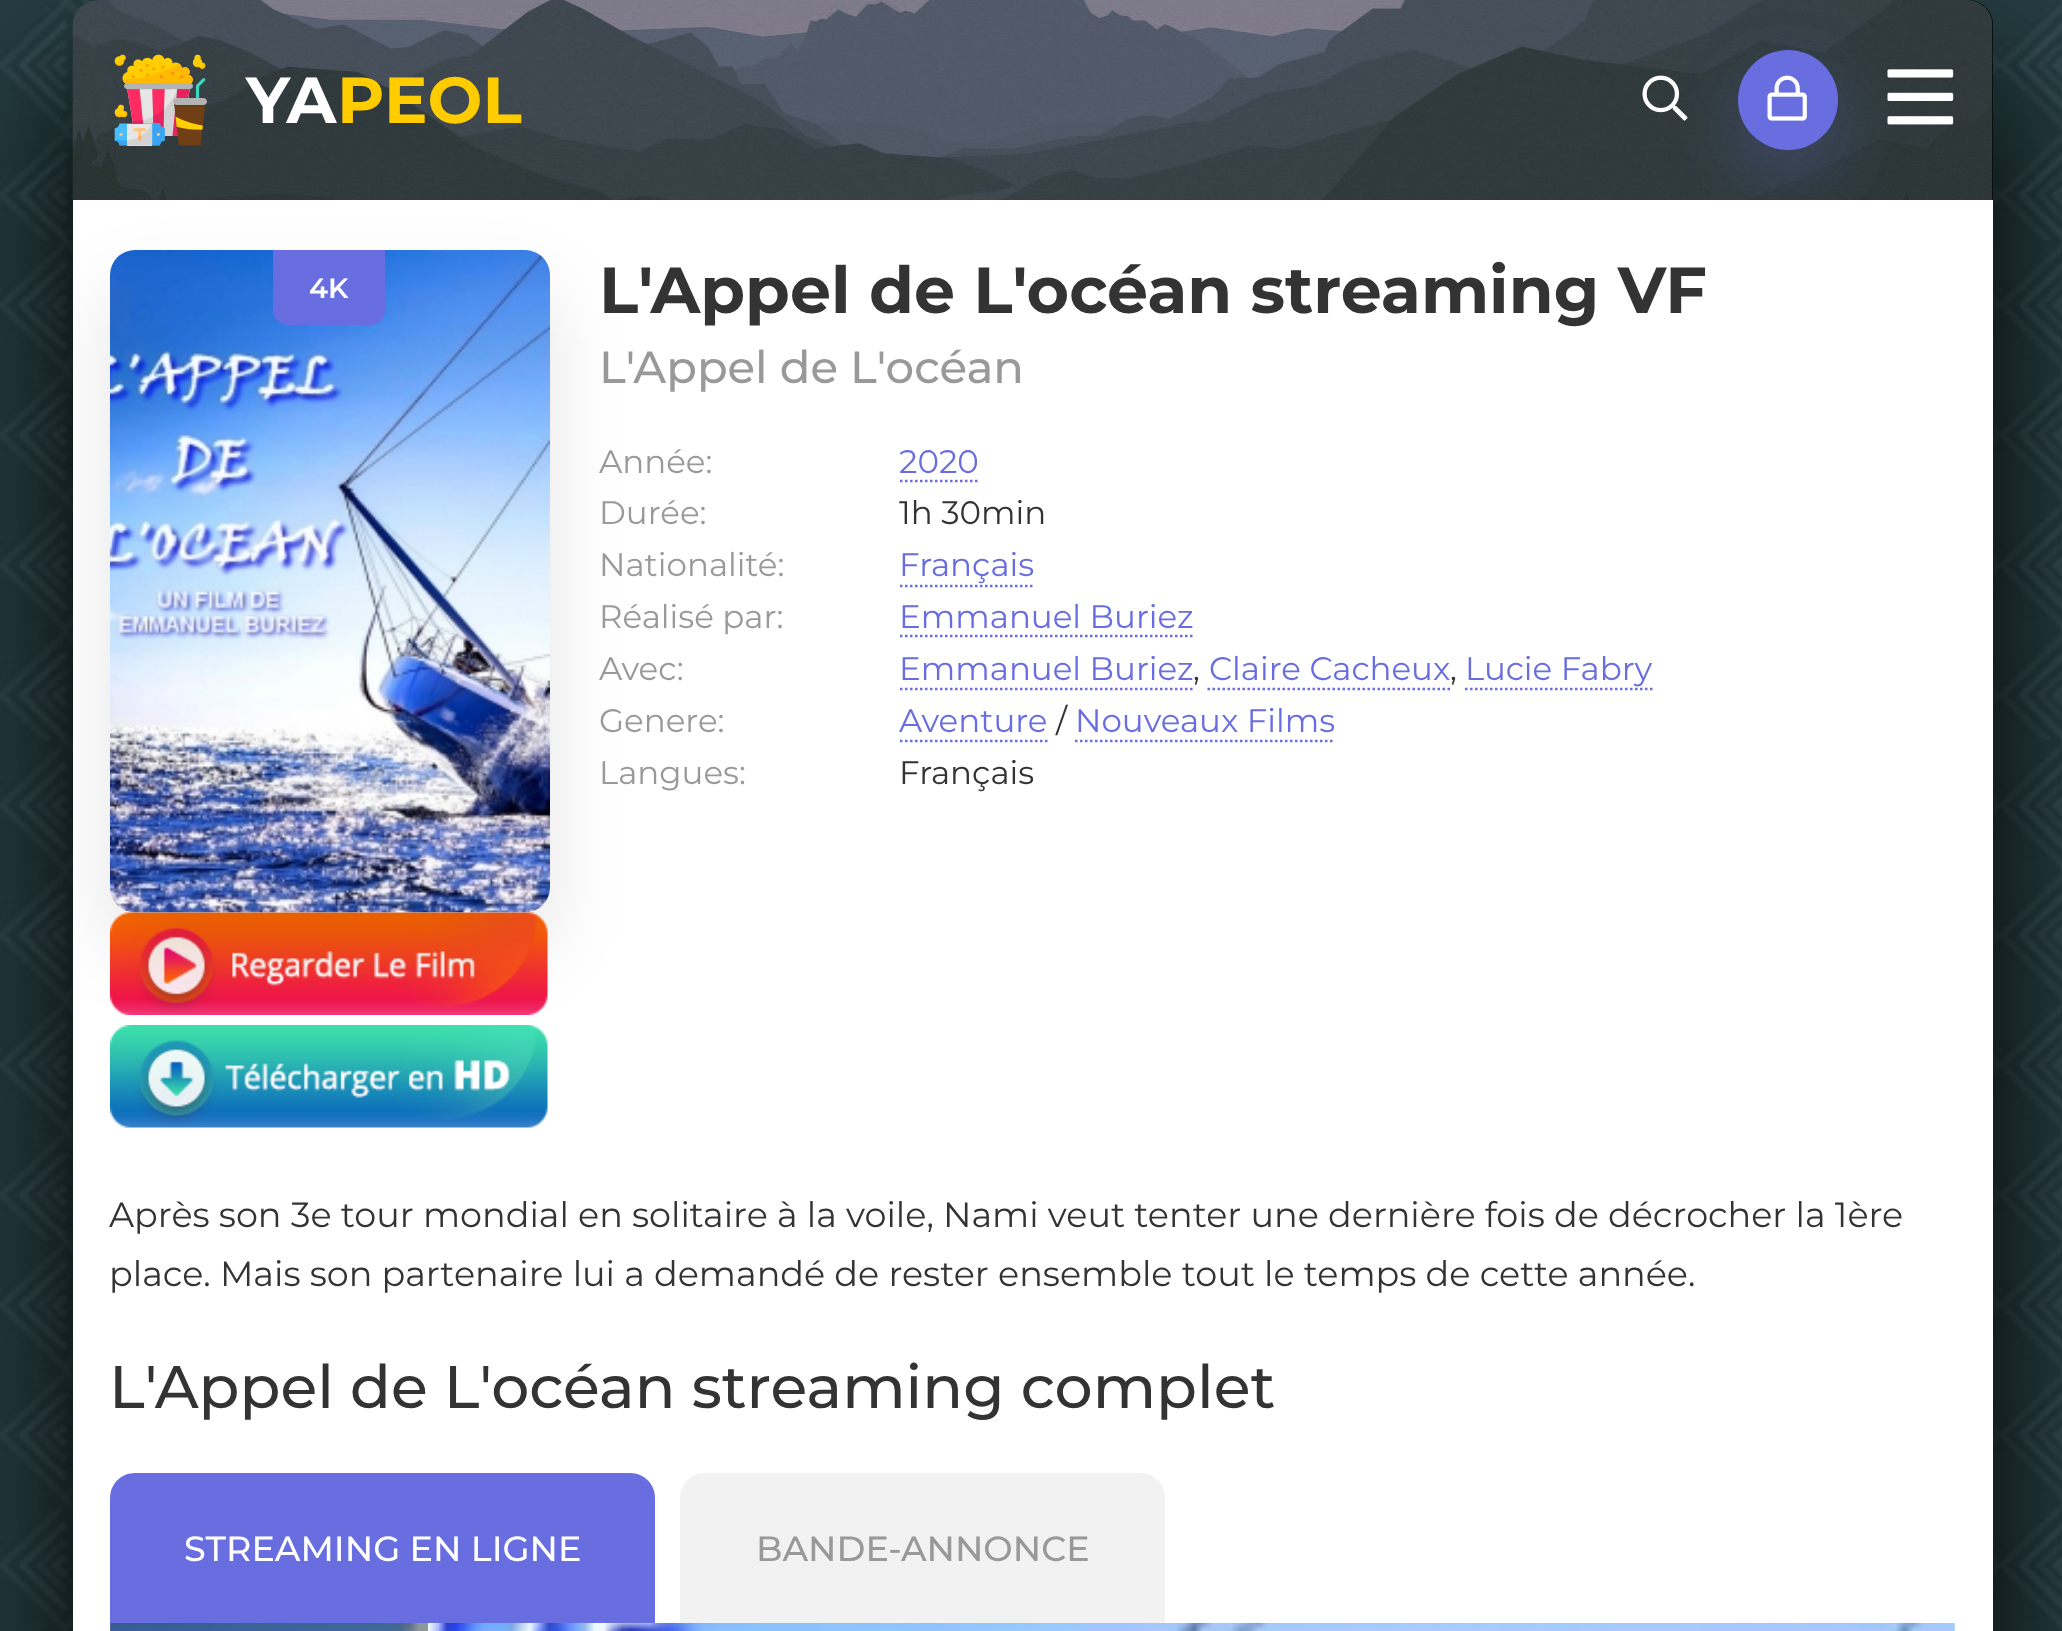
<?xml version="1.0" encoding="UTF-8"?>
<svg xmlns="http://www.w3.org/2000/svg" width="2062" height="1631">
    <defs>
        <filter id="blur1" x="-50%" y="-200%" width="200%" height="500%"><feGaussianBlur stdDeviation="75"/></filter>
        <filter id="blur2" x="-50%" y="-200%" width="200%" height="500%"><feGaussianBlur stdDeviation="37.5"/></filter>
        <clipPath id="clip1"><rect x="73" y="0" width="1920" height="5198" rx="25"/></clipPath>
    </defs>
    <rect width="100%" height="100%" fill="#FFFFFF"/>
    <image x="0" y="0" width="2062" height="1631" href="img_01.png"/>
    <rect x="73" y="75" width="1920" height="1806" rx="25" fill="#000000" filter="url(#blur1)"/>
    <path d="M 98 0 H 1968 C 1982 0 1993 11 1993 25 V 200 H 73 V 25 C 73 11 84 0 98 0 Z" fill="#000000"/>
    <image x="72" y="0" width="1921" height="200" href="img_02.png"/>
    <image x="1642" y="75" width="46" height="46" href="img_05.png"/>
    <rect x="1738" y="75" width="100" height="100" rx="50" fill="#686DE0" fill-opacity="0.3" filter="url(#blur2)"/>
    <circle cx="1788" cy="100" r="50" fill="#686DE0"/>
    <image x="1767" y="75" width="40" height="46" href="img_03.png"/>
    <image x="114" y="54" width="93" height="92" href="img_04.png"/>
    <text x="246" y="123" font-family="Montserrat" font-size="65" font-weight="700" fill="#FFFFFF">YA</text>
    <text x="337" y="123" font-family="Montserrat" font-size="65" font-weight="700" fill="#FFCC00">PEOL</text>
    <image x="1887" y="69" width="67" height="56" href="img_06.png"/>
    <rect x="73" y="200" width="1920" height="1431" fill="#FFFFFF"/>
    <image x="110" y="912" width="438" height="103" href="img_08.png"/>
    <image x="110" y="1025" width="438" height="103" href="img_09.png"/>
    <g clip-path="url(#clip1)">
        <rect x="110" y="288" width="440" height="662" rx="25" fill="#000000" fill-opacity="0.1" filter="url(#blur2)"/>
    </g>
    <image x="110" y="250" width="440" height="663" href="img_07.png"/>
    <path d="M 273 250 H 385 V 310 C 385 318.5 378.5 325 370 325 H 288 C 279.5 325 273 318.5 273 310 Z" fill="#686DE0"/>
    <text x="309" y="298" font-family="Montserrat" font-size="28" font-weight="600" fill="#FFFFFF">4K</text>
    <text x="599" y="313" font-family="Montserrat" font-size="65" font-weight="700" fill="#333333">L'Appel de L'océan streaming VF</text>
    <text x="599" y="383" font-family="Montserrat" font-size="45" font-weight="500" fill="#999999">L'Appel de L'océan</text>
    <text x="599" y="473" font-family="Montserrat" font-size="32.5" fill="#999999">Année:</text>
    <text x="899" y="473" font-family="Montserrat" font-size="32.5" fill="#686DE0">2020</text>
    <path d="M 900 481 H 977.5" fill="none" stroke="#686DE0" stroke-width="2.5" stroke-dasharray="2.5 2.5"/>
    <text x="599" y="524" font-family="Montserrat" font-size="32.5" fill="#999999">Durée:</text>
    <text x="899" y="524" font-family="Montserrat" font-size="32.5" fill="#333333">1h 30min</text>
    <text x="599" y="576" font-family="Montserrat" font-size="32.5" fill="#999999">Nationalité:</text>
    <text x="899" y="576" font-family="Montserrat" font-size="32.5" fill="#686DE0">Français</text>
    <path d="M 900 586 H 1035" fill="none" stroke="#686DE0" stroke-width="2.5" stroke-dasharray="2.5 2.5"/>
    <text x="599" y="628" font-family="Montserrat" font-size="32.5" fill="#999999">Réalisé par:</text>
    <text x="899" y="628" font-family="Montserrat" font-size="32.5" fill="#686DE0">Emmanuel Buriez</text>
    <path d="M 900 636 H 1192.5" fill="none" stroke="#686DE0" stroke-width="2.5" stroke-dasharray="2.5 2.5"/>
    <text x="599" y="680" font-family="Montserrat" font-size="32.5" fill="#999999">Avec:</text>
    <text x="899" y="680" font-family="Montserrat" font-size="32.5" fill="#686DE0">Emmanuel Buriez</text>
    <path d="M 900 689 H 1192.5" fill="none" stroke="#686DE0" stroke-width="2.5" stroke-dasharray="2.5 2.5"/>
    <text x="1193" y="680" font-family="Montserrat" font-size="32.5" fill="#333333">,</text>
    <text x="1209" y="680" font-family="Montserrat" font-size="32.5" fill="#686DE0">Claire Cacheux</text>
    <path d="M 1207.5 689 H 1450" fill="none" stroke="#686DE0" stroke-width="2.5" stroke-dasharray="2.5 2.5"/>
    <text x="1450" y="680" font-family="Montserrat" font-size="32.5" fill="#333333">,</text>
    <text x="1465" y="680" font-family="Montserrat" font-size="32.5" fill="#686DE0">Lucie Fabry</text>
    <path d="M 1465 689 H 1652.5" fill="none" stroke="#686DE0" stroke-width="2.5" stroke-dasharray="2.5 2.5"/>
    <text x="599" y="732" font-family="Montserrat" font-size="32.5" fill="#999999">Genere:</text>
    <text x="899" y="732" font-family="Montserrat" font-size="32.5" fill="#686DE0">Aventure</text>
    <path d="M 900 741 H 1047.5" fill="none" stroke="#686DE0" stroke-width="2.5" stroke-dasharray="2.5 2.5"/>
    <text x="1056" y="732" font-family="Montserrat" font-size="32.5" fill="#333333">/</text>
    <text x="1075" y="732" font-family="Montserrat" font-size="32.5" fill="#686DE0">Nouveaux Films</text>
    <path d="M 1075 741 H 1335" fill="none" stroke="#686DE0" stroke-width="2.5" stroke-dasharray="2.5 2.5"/>
    <text x="599" y="784" font-family="Montserrat" font-size="32.5" fill="#999999">Langues:</text>
    <text x="899" y="784" font-family="Montserrat" font-size="32.5" fill="#333333">Français</text>
    <text font-family="Montserrat" font-size="35" fill="#333333">
        <tspan x="109" y="1227">Après son 3e tour mondial en solitaire à la voile, Nami veut tenter une dernière fois de décrocher la 1ère</tspan>
        <tspan x="109" y="1286">place. Mais son partenaire lui a demandé de rester ensemble tout le temps de cette année.</tspan>
    </text>
    <text x="109" y="1408" font-family="Montserrat" font-size="60" font-weight="500" fill="#333333">L'Appel de L'océan streaming complet</text>
    <path d="M 135 1473 H 630 C 644 1473 655 1484 655 1498 V 1623 H 110 V 1498 C 110 1484 121 1473 135 1473 Z" fill="#686DE0"/>
    <text x="184" y="1561" font-family="Montserrat" font-size="35" font-weight="500" fill="#FFFFFF">STREAMING EN LIGNE</text>
    <path d="M 705 1473 H 1140 C 1154 1473 1165 1484 1165 1498 V 1623 H 680 V 1498 C 680 1484 691 1473 705 1473 Z" fill="#F2F2F2"/>
    <text x="756" y="1561" font-family="Montserrat" font-size="35" font-weight="500" fill="#999999">BANDE-ANNONCE</text>
    <image x="110" y="1623" width="1845" height="8" href="img_10.png"/>
    <rect x="110" y="1623" width="318" height="8" fill="#000000" fill-opacity="0.4"/>
</svg>
